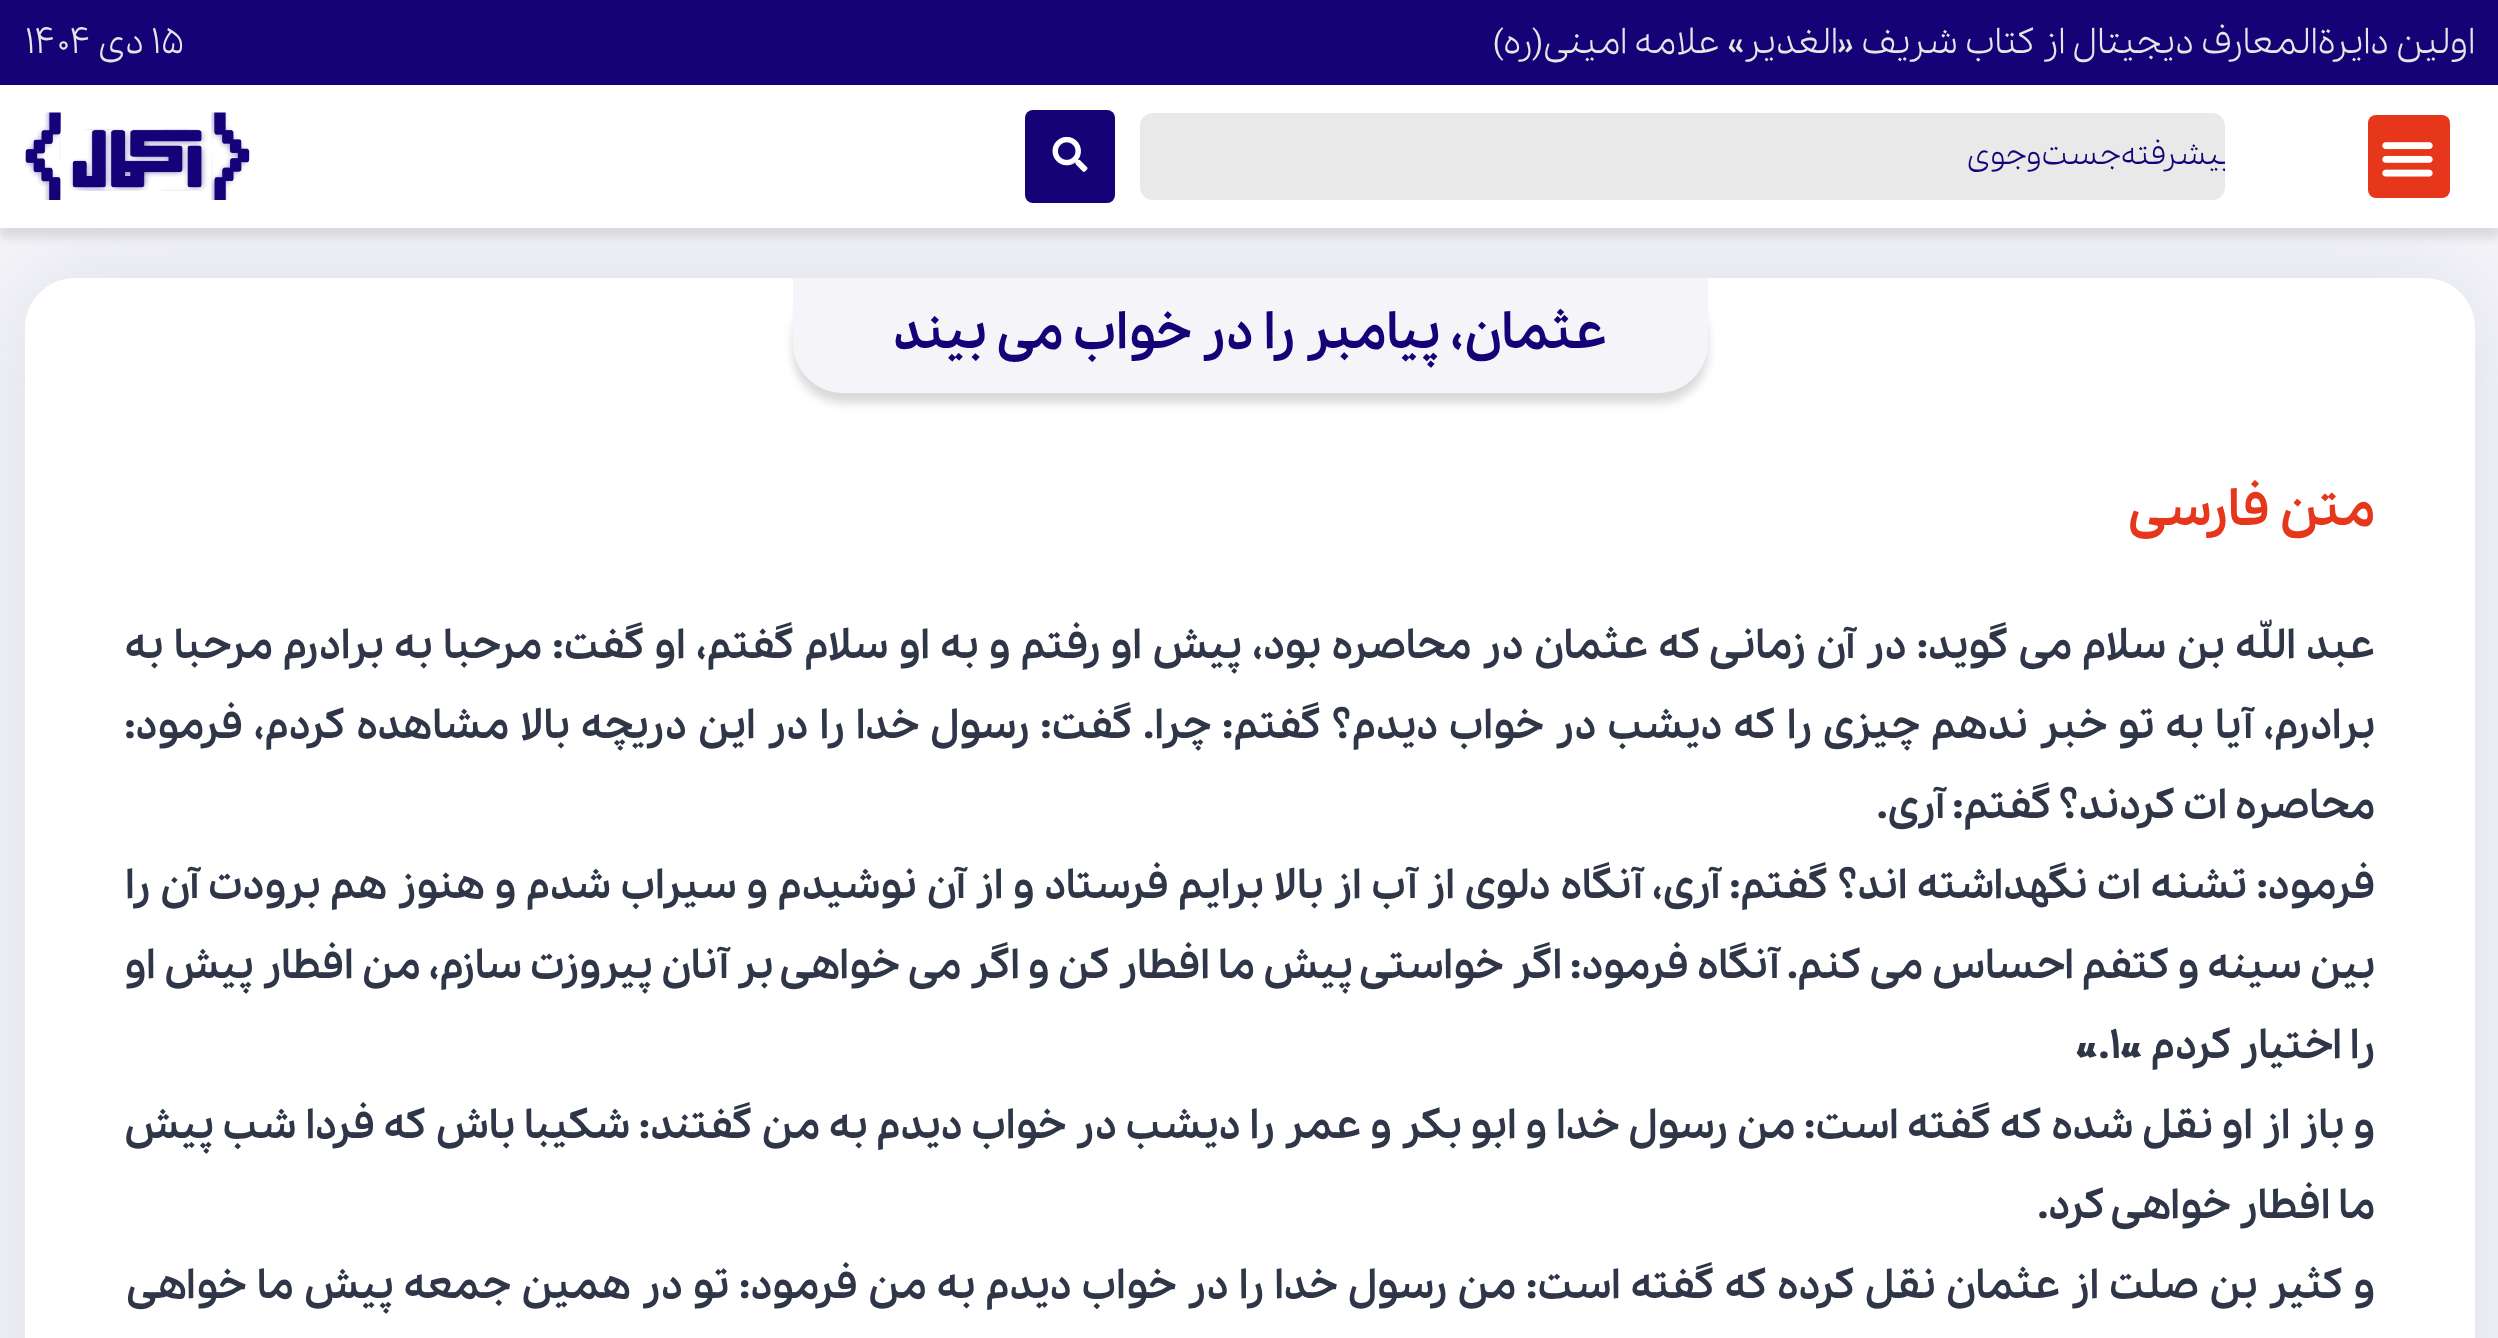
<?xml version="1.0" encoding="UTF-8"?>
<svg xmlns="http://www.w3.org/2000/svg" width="2498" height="1338">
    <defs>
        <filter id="blur1" x="-50%" y="-200%" width="200%" height="500%"><feGaussianBlur stdDeviation="4"/></filter>
        <filter id="blur2" x="-50%" y="-200%" width="200%" height="500%"><feGaussianBlur stdDeviation="50"/></filter>
        <clipPath id="clip1"><rect x="1140" y="113" width="1085" height="87" rx="13"/></clipPath>
        <filter id="blur3" x="-50%" y="-200%" width="200%" height="500%"><feGaussianBlur stdDeviation="5"/></filter>
    </defs>
    <rect width="100%" height="100%" fill="#F4F4F9"/>
    <rect x="0" y="0" width="2498" height="85" fill="#150277"/>
    <text x="2475" y="53" font-family="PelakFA" font-size="35" direction="rtl" fill="#E6E6E6">اولین دایرةالمعارف دیجیتال از کتاب شریف «الغدیر» علامه امینی(ره)</text>
    <text x="151" y="53" font-family="PelakFA" font-size="35" fill="#E6E6E6">۱۵</text>
    <text x="144" y="53" font-family="PelakFA" font-size="35" direction="rtl" fill="#E6E6E6">دی</text>
    <text x="25" y="53" font-family="PelakFA" font-size="35" fill="#E6E6E6">۱۴۰۴</text>
    <rect x="0" y="95" width="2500" height="143" fill="#000000" fill-opacity="0.1" filter="url(#blur1)"/>
    <rect x="25" y="278" width="2450" height="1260" rx="50" fill="#AEB8C2" fill-opacity="0.35" filter="url(#blur2)"/>
    <rect x="0" y="85" width="2498" height="143" fill="#FFFFFF"/>
    <rect x="2368" y="115" width="82" height="83" rx="8" fill="#E6371C"/>
    <image x="2382" y="142" width="51" height="35" href="img_01.png"/>
    <rect x="1140" y="113" width="1085" height="87" rx="13" fill="#E9E9E9"/>
    <g clip-path="url(#clip1)">
        <text x="2232" y="164" font-family="PelakFA" font-size="30" direction="rtl" fill="#150277">پیشرفته</text>
    </g>
    <text x="2121" y="164" font-family="PelakFA" font-size="30" direction="rtl" fill="#150277">جست‌وجوی</text>
    <rect x="1025" y="110" width="90" height="93" rx="8" fill="#150277"/>
    <image x="1052" y="136" width="36" height="36" href="img_02.png"/>
    <image x="25" y="112" width="225" height="88" href="img_03.png"/>
    <rect x="25" y="278" width="2450" height="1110" rx="50" fill="#FFFFFF"/>
    <rect x="793" y="288" width="915" height="115" rx="50" fill="#000000" fill-opacity="0.15" filter="url(#blur3)"/>
    <path d="M 793 278 H 1708 V 343 C 1708 370.5 1685.5 393 1658 393 H 843 C 815.5 393 793 370.5 793 343 Z" fill="#F4F4F9"/>
    <text x="1607" y="348" font-family="PelakFA" font-size="50" font-weight="700" direction="rtl" fill="#150277">عثمان، پیامبر را در خواب می بیند</text>
    <text x="2375" y="525" font-family="PelakFA" font-size="50" font-weight="700" direction="rtl" fill="#E6371C">متن فارسی</text>
    <text x="2375" y="658" word-spacing="2.4" font-family="PelakFA" font-size="40" font-weight="700" direction="rtl" fill="#2E3647">عبد اللّه بن سلام می گوید: در آن زمانی که عثمان در محاصره بود، پیش او رفتم و به او سلام گفتم، او گفت: مرحبا به برادرم مرحبا به</text>
    <text x="2375" y="738" word-spacing="3.1" font-family="PelakFA" font-size="40" font-weight="700" direction="rtl" fill="#2E3647">برادرم، آیا به تو خبر ندهم چیزی را که دیشب در خواب دیدم؟ گفتم: چرا. گفت: رسول خدا را در این دریچه بالا مشاهده کردم، فرمود:</text>
    <text x="2375" y="818" font-family="PelakFA" font-size="40" font-weight="700" direction="rtl" fill="#2E3647">محاصره ات کردند؟ گفتم: آری.</text>
    <text x="2375" y="898" word-spacing="1.8" font-family="PelakFA" font-size="40" font-weight="700" direction="rtl" fill="#2E3647">فرمود: تشنه ات نگهداشته اند؟ گفتم: آری، آنگاه دلوی از آب از بالا برایم فرستاد و از آن نوشیدم و سیراب شدم و هنوز هم برودت آن را</text>
    <text x="2375" y="978" word-spacing="0.3" font-family="PelakFA" font-size="40" font-weight="700" direction="rtl" fill="#2E3647">بین سینه و کتفم احساس می کنم. آنگاه فرمود: اگر خواستی پیش ما افطار کن و اگر می خواهی بر آنان پیروزت سازم، من افطار پیش او</text>
    <text x="2375" y="1058" font-family="PelakFA" font-size="40" font-weight="700" direction="rtl" fill="#2E3647">را اختیار کردم «</text>
    <text x="2076" y="1058" font-family="PelakFA" font-size="40" font-weight="700" fill="#2E3647">».1</text>
    <text x="2375" y="1138" word-spacing="1" font-family="PelakFA" font-size="40" font-weight="700" direction="rtl" fill="#2E3647">و باز از او نقل شده که گفته است: من رسول خدا و ابو بکر و عمر را دیشب در خواب دیدم به من گفتند: شکیبا باش که فردا شب پیش</text>
    <text x="2375" y="1218" font-family="PelakFA" font-size="40" font-weight="700" direction="rtl" fill="#2E3647">ما افطار خواهی کرد.</text>
    <text x="2375" y="1298" word-spacing="2.3" font-family="PelakFA" font-size="40" font-weight="700" direction="rtl" fill="#2E3647">و کثیر بن صلت از عثمان نقل کرده که گفته است: من رسول خدا را در خواب دیدم به من فرمود: تو در همین جمعه پیش ما خواهی</text>
</svg>
